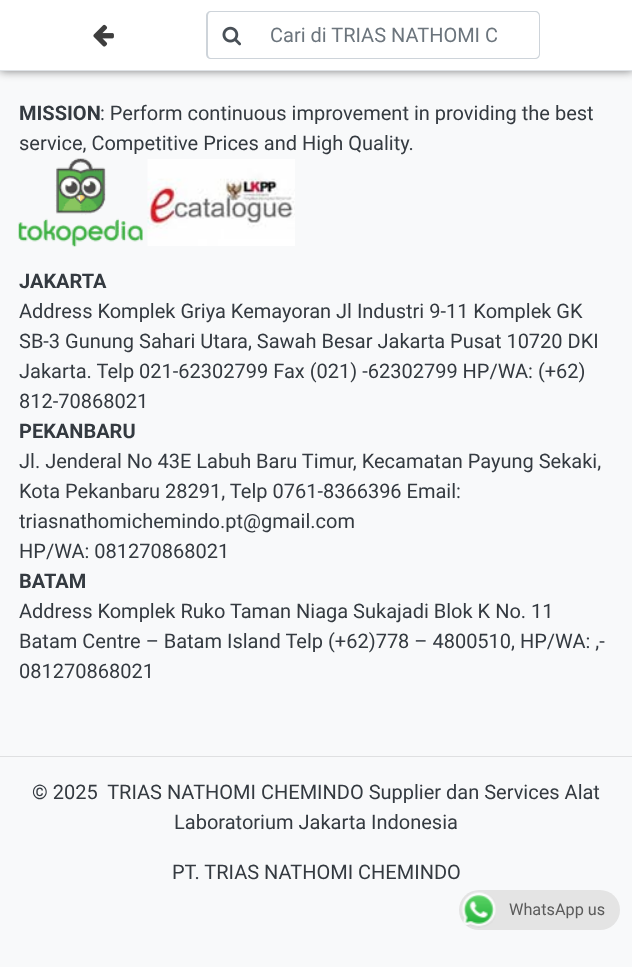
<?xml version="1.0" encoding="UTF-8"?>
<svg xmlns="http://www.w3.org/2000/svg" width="632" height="967">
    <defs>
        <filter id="blur1" x="-50%" y="-200%" width="200%" height="500%"><feGaussianBlur stdDeviation="5"/></filter>
    </defs>
    <rect width="100%" height="100%" fill="#F8F9FA"/>
    <rect x="0" y="0" width="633" height="71" fill="#000000" fill-opacity="0.5" filter="url(#blur1)"/>
    <rect x="0" y="0" width="632" height="70" fill="#FFFFFF"/>
    <rect x="0" y="70" width="632" height="1" fill="#DEE2E6"/>
    <image x="93" y="24" width="21" height="23" href="img_01.png"/>
    <path d="M 211 11 H 256 V 59 H 211 C 208 59 206 57 206 54 V 16 C 206 13 208 11 211 11 Z M 211 12 H 256 V 58 H 211 C 209 58 208 56 208 54 V 16 C 208 14 209 12 211 12 Z" fill="#CED4DA" fill-rule="evenodd"/>
    <image x="222" y="26" width="19" height="20" href="img_02.png"/>
    <path d="M 255 11 H 535 C 538 11 540 13 540 16 V 54 C 540 57 538 59 535 59 H 255 Z M 255 12 H 535 C 537 12 539 14 539 16 V 54 C 539 56 537 58 535 58 H 255 Z" fill="#CED4DA" fill-rule="evenodd"/>
    <text x="270" y="42" font-family="Roboto" font-size="20" fill="#6C757D">Cari di TRIAS NATHOMI C</text>
    <text x="19" y="120" font-family="Roboto" font-size="20" font-weight="700" fill="#343A40">MISSION</text>
    <text x="100" y="120" font-family="Roboto" font-size="20" fill="#343A40">: Perform continuous improvement in providing the best</text>
    <text x="19" y="150" font-family="Roboto" font-size="20" fill="#343A40">service, Competitive Prices and High Quality.</text>
    <image x="18" y="158" width="125" height="89" href="img_03.png"/>
    <image x="147" y="159" width="148" height="87" href="img_04.png"/>
    <text x="19" y="288" font-family="Roboto" font-size="20" font-weight="700" fill="#343A40">JAKARTA</text>
    <text font-family="Roboto" font-size="20" fill="#343A40">
        <tspan x="19" y="318">Address Komplek Griya Kemayoran Jl Industri 9-11 Komplek GK</tspan>
        <tspan x="19" y="348">SB-3 Gunung Sahari Utara, Sawah Besar Jakarta Pusat 10720 DKI</tspan>
        <tspan x="19" y="378">Jakarta. Telp 021-62302799 Fax (021) -62302799 HP/WA: (+62)</tspan>
        <tspan x="19" y="408">812-70868021</tspan>
    </text>
    <text x="19" y="438" font-family="Roboto" font-size="20" font-weight="700" fill="#343A40">PEKANBARU</text>
    <text font-family="Roboto" font-size="20" fill="#343A40">
        <tspan x="19" y="468">Jl. Jenderal No 43E Labuh Baru Timur, Kecamatan Payung Sekaki,</tspan>
        <tspan x="19" y="498">Kota Pekanbaru 28291, Telp 0761-8366396 Email:</tspan>
        <tspan x="19" y="528">triasnathomichemindo.pt@gmail.com</tspan>
        <tspan x="19" y="558">HP/WA: 081270868021</tspan>
    </text>
    <text x="19" y="588" font-family="Roboto" font-size="20" font-weight="700" fill="#343A40">BATAM</text>
    <text font-family="Roboto" font-size="20" fill="#343A40">
        <tspan x="19" y="618">Address Komplek Ruko Taman Niaga Sukajadi Blok K No. 11</tspan>
        <tspan x="19" y="648">Batam Centre – Batam Island Telp (+62)778 – 4800510, HP/WA: ,-</tspan>
        <tspan x="19" y="678">081270868021</tspan>
    </text>
    <rect x="0" y="756" width="632" height="1" fill="#DFE0E1"/>
    <text x="32" y="799" font-family="Roboto" font-size="20" fill="#343A40" xml:space="preserve">© 2025  TRIAS NATHOMI CHEMINDO Supplier dan Services Alat</text>
    <text x="174" y="829" font-family="Roboto" font-size="20" fill="#343A40">Laboratorium Jakarta Indonesia</text>
    <text x="172" y="879" font-family="Roboto" font-size="20" fill="#343A40">PT. TRIAS NATHOMI CHEMINDO</text>
    <rect x="459" y="890" width="161" height="40" rx="20" fill="#E4E4E4"/>
    <image x="461" y="892" width="35" height="36" href="img_05.png"/>
    <text x="509" y="915" font-family="Roboto" font-size="16.25" fill="#5B5B5B">WhatsApp us</text>
</svg>
